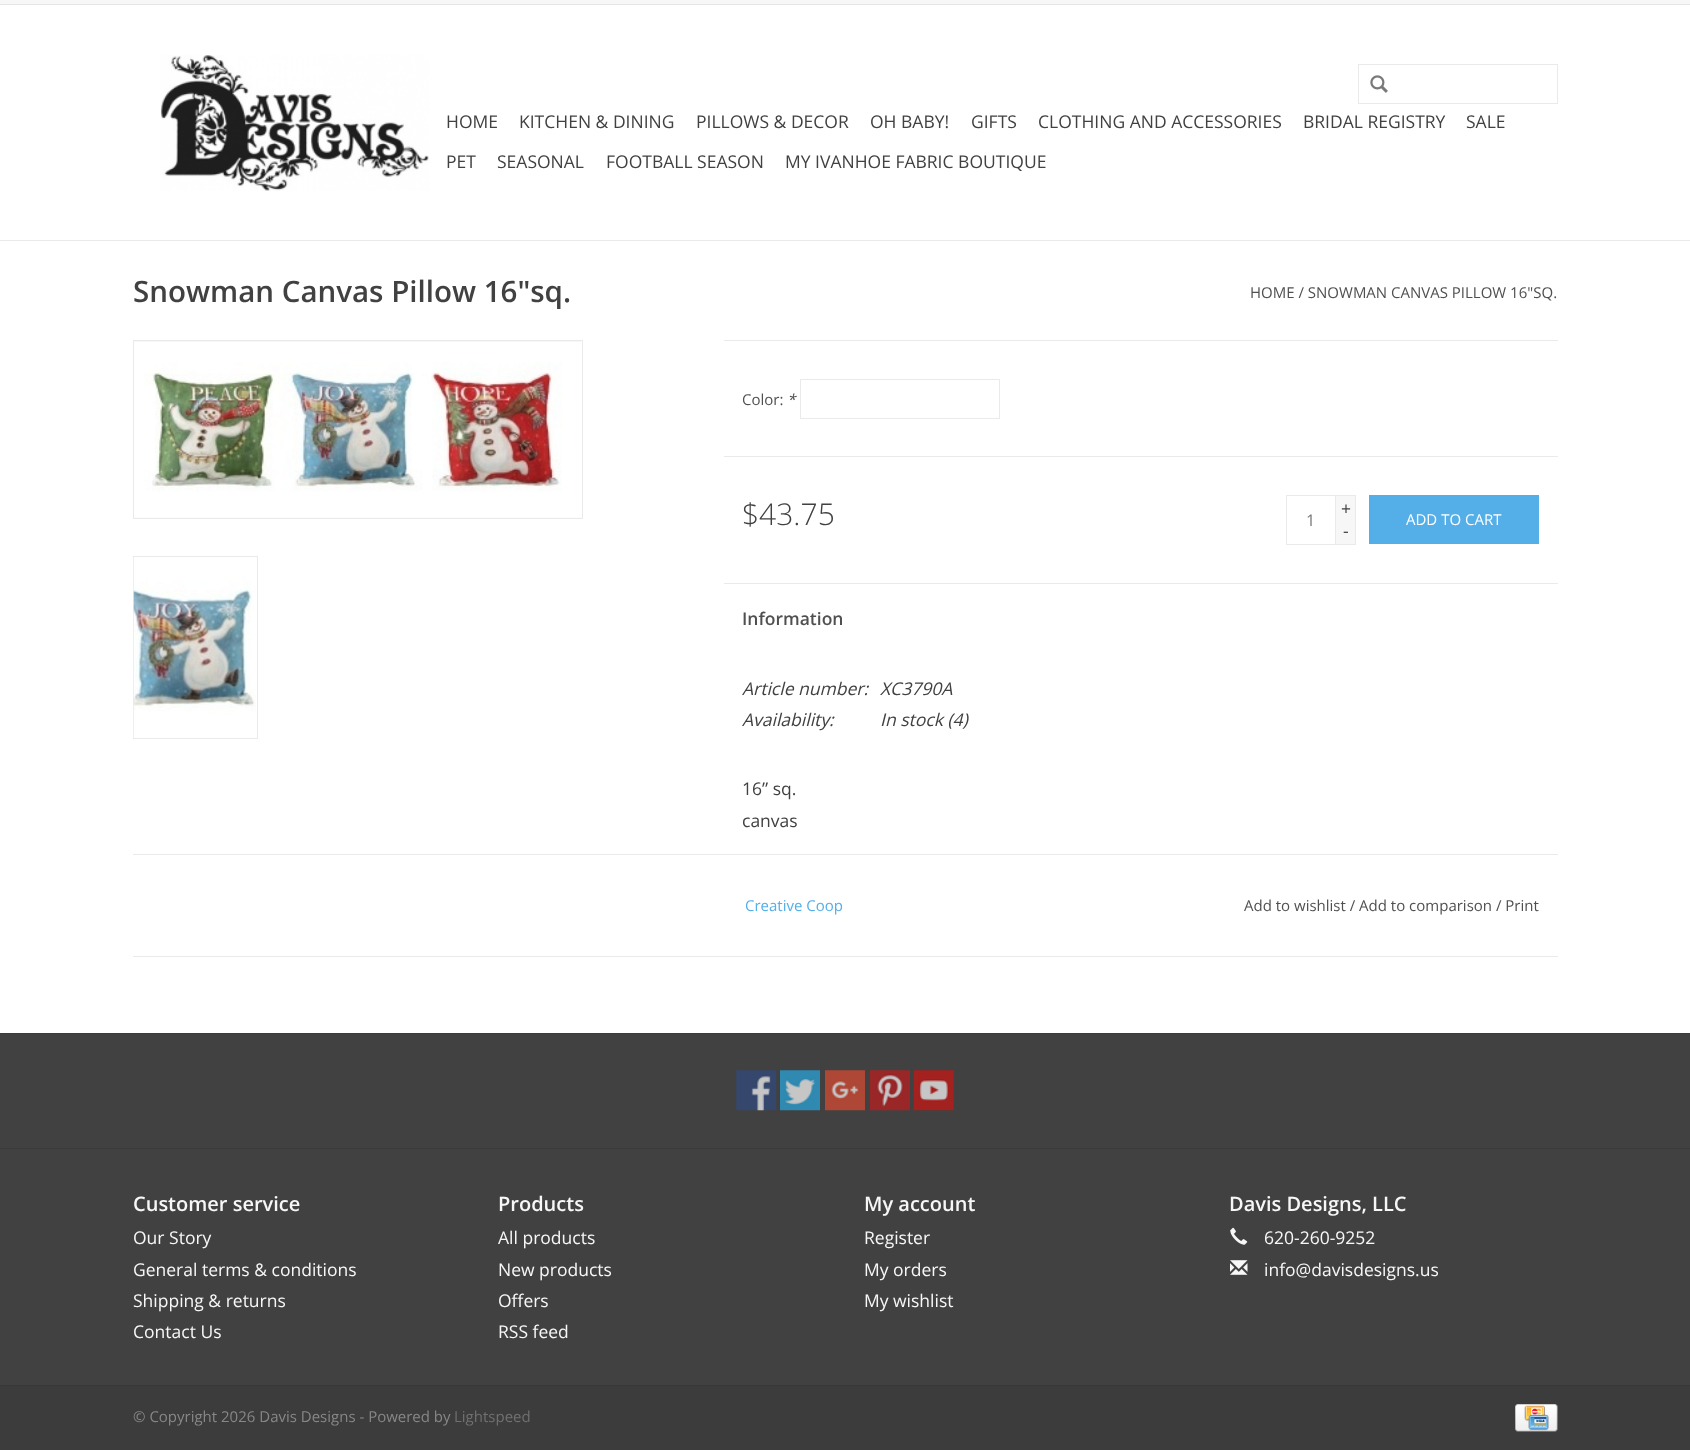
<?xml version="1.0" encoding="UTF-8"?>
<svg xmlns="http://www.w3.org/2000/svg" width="1690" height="1450">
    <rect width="100%" height="100%" fill="#FFFFFF"/>
    <rect x="0" y="240" width="1690" height="1" fill="#EAEAEA"/>
    <rect x="0" y="0" width="1690" height="4" fill="#F7F7F7"/>
    <rect x="0" y="4" width="1690" height="1" fill="#E5E5E5"/>
    <image x="160" y="55" width="269" height="136" href="img_01.png"/>
    <rect x="1358.5" y="64.5" width="199" height="39" fill="none" stroke="#EAEAEA"/>
    <image x="1370" y="75" width="18" height="18" href="img_02.png"/>
    <text x="446" y="128" font-family="Open Sans" font-size="17.5" fill="#414141">HOME</text>
    <text x="519" y="128" font-family="Open Sans" font-size="17.5" fill="#414141">KITCHEN &amp; DINING</text>
    <text x="696" y="128" font-family="Open Sans" font-size="17.5" fill="#414141">PILLOWS &amp; DECOR</text>
    <text x="870" y="128" font-family="Open Sans" font-size="17.5" fill="#414141">OH BABY!</text>
    <text x="971" y="128" font-family="Open Sans" font-size="17.5" fill="#414141">GIFTS</text>
    <text x="1038" y="128" font-family="Open Sans" font-size="17.5" fill="#414141">CLOTHING AND ACCESSORIES</text>
    <text x="1303" y="128" font-family="Open Sans" font-size="17.5" fill="#414141">BRIDAL REGISTRY</text>
    <text x="1466" y="128" font-family="Open Sans" font-size="17.5" fill="#414141">SALE</text>
    <text x="446" y="168" font-family="Open Sans" font-size="17.5" fill="#414141">PET</text>
    <text x="497" y="168" font-family="Open Sans" font-size="17.5" fill="#414141">SEASONAL</text>
    <text x="606" y="168" font-family="Open Sans" font-size="17.5" fill="#414141">FOOTBALL SEASON</text>
    <text x="785" y="168" font-family="Open Sans" font-size="17.5" fill="#414141">MY IVANHOE FABRIC BOUTIQUE</text>
    <text x="133" y="302" font-family="Open Sans" font-size="29.5" font-weight="600" fill="#414141">Snowman Canvas Pillow 16"sq.</text>
    <text x="1250" y="298" font-family="Open Sans" font-size="15" fill="#505050">HOME / SNOWMAN CANVAS PILLOW 16"SQ.</text>
    <rect x="133.5" y="340.5" width="449" height="178" fill="none" stroke="#EAEAEA"/>
    <rect x="134" y="341" width="447" height="177" fill="#F7F7F7"/>
    <image x="134" y="342" width="447" height="176" href="img_03.png"/>
    <rect x="133.5" y="556.5" width="124" height="182" fill="none" stroke="#EAEAEA"/>
    <image x="133" y="558" width="123" height="180" href="img_04.png"/>
    <rect x="724" y="340" width="834" height="1" fill="#EAEAEA"/>
    <text x="742" y="405" font-family="Open Sans" font-size="15" fill="#505050">Color:</text>
    <text x="787" y="405" font-family="Open Sans" font-size="15" font-style="italic" fill="#505050">*</text>
    <rect x="800.5" y="379.5" width="199" height="39" fill="none" stroke="#EAEAEA"/>
    <rect x="724" y="456" width="834" height="1" fill="#EAEAEA"/>
    <text x="742" y="525" font-family="Open Sans" font-size="30" font-weight="300" fill="#414141">$43.75</text>
    <rect x="1286.5" y="495.5" width="49" height="49" fill="none" stroke="#EAEAEA"/>
    <text x="1306" y="526" font-family="Open Sans" font-size="16" fill="#777777">1</text>
    <rect x="1336" y="496" width="19" height="48" fill="#F7F7F7"/>
    <rect x="1336" y="495" width="20" height="1" fill="#EAEAEA"/>
    <rect x="1355" y="495" width="1" height="50" fill="#EAEAEA"/>
    <rect x="1336" y="544" width="20" height="1" fill="#EAEAEA"/>
    <text x="1341" y="515" font-family="Open Sans" font-size="17.5" fill="#414141">+</text>
    <text x="1343" y="537" font-family="Open Sans" font-size="17.5" fill="#414141">-</text>
    <rect x="1369" y="495" width="170" height="49" fill="#54AFE9"/>
    <text x="1406" y="525" font-family="Open Sans" font-size="15" fill="#FFFFFF">ADD TO CART</text>
    <rect x="724" y="583" width="834" height="1" fill="#EAEAEA"/>
    <text x="742" y="625" font-family="Open Sans" font-size="17.5" font-weight="600" fill="#505050">Information</text>
    <text x="742" y="695" font-family="Open Sans" font-size="17.5" font-style="italic" fill="#414141">Article number:</text>
    <text x="880" y="695" font-family="Open Sans" font-size="17.5" font-style="italic" fill="#414141">XC3790A</text>
    <text x="742" y="726" font-family="Open Sans" font-size="17.5" font-style="italic" fill="#414141">Availability:</text>
    <text x="880" y="726" font-family="Open Sans" font-size="17.5" font-style="italic" fill="#414141">In stock (4)</text>
    <text font-family="Open Sans" font-size="17.5" fill="#414141">
        <tspan x="742" y="795">16” sq.</tspan>
        <tspan x="742" y="827">canvas</tspan>
    </text>
    <rect x="133" y="854" width="1425" height="1" fill="#EAEAEA"/>
    <rect x="133" y="956" width="1425" height="1" fill="#EAEAEA"/>
    <text x="745" y="911" font-family="Open Sans" font-size="15" fill="#54AFE9">Creative Coop</text>
    <text x="1244" y="911" font-family="Open Sans" font-size="15" fill="#505050">Add to wishlist / Add to comparison / Print</text>
    <rect x="0" y="1034" width="1690" height="351" fill="#414141"/>
    <rect x="0" y="1033" width="1690" height="1" fill="#3B3B3B"/>
    <image x="736" y="1070" width="41" height="41" href="img_05.png"/>
    <image x="780" y="1070" width="40" height="41" href="img_06.png"/>
    <image x="825" y="1070" width="40" height="41" href="img_07.png"/>
    <image x="870" y="1070" width="40" height="41" href="img_08.png"/>
    <image x="913" y="1070" width="41" height="41" href="img_09.png"/>
    <rect x="0" y="1148" width="1690" height="1" fill="#3B3B3B"/>
    <text x="133" y="1211" font-family="Open Sans" font-size="20" font-weight="600" fill="#F7F7F7">Customer service</text>
    <text font-family="Open Sans" font-size="17.5" fill="#F7F7F7">
        <tspan x="133" y="1244">Our Story</tspan>
        <tspan x="133" y="1276">General terms &amp; conditions</tspan>
        <tspan x="133" y="1307">Shipping &amp; returns</tspan>
        <tspan x="133" y="1338">Contact Us</tspan>
    </text>
    <text x="498" y="1211" font-family="Open Sans" font-size="20" font-weight="600" fill="#F7F7F7">Products</text>
    <text font-family="Open Sans" font-size="17.5" fill="#F7F7F7">
        <tspan x="498" y="1244">All products</tspan>
        <tspan x="498" y="1276">New products</tspan>
        <tspan x="498" y="1307">Offers</tspan>
        <tspan x="498" y="1338">RSS feed</tspan>
    </text>
    <text x="864" y="1211" font-family="Open Sans" font-size="20" font-weight="600" fill="#F7F7F7">My account</text>
    <text font-family="Open Sans" font-size="17.5" fill="#F7F7F7">
        <tspan x="864" y="1244">Register</tspan>
        <tspan x="864" y="1276">My orders</tspan>
        <tspan x="864" y="1307">My wishlist</tspan>
    </text>
    <text x="1229" y="1211" font-family="Open Sans" font-size="20" font-weight="600" fill="#F7F7F7">Davis Designs, LLC</text>
    <image x="1230" y="1227" width="18" height="18" href="img_10.png"/>
    <text x="1264" y="1244" font-family="Open Sans" font-size="17.5" fill="#F7F7F7">620-260-9252</text>
    <image x="1230" y="1260" width="18" height="15" href="img_11.png"/>
    <text x="1264" y="1276" font-family="Open Sans" font-size="17.5" fill="#F7F7F7">info@davisdesigns.us</text>
    <rect x="0" y="1385" width="1690" height="1" fill="#373737"/>
    <rect x="0" y="1386" width="1690" height="64" fill="#3C3C3C"/>
    <text x="133" y="1422" font-family="Open Sans" font-size="15" fill="#878787">© Copyright 2026 Davis Designs - Powered by</text>
    <text x="454" y="1422" font-family="Open Sans" font-size="15" fill="#707070">Lightspeed</text>
    <image x="1515" y="1404" width="43" height="28" href="img_12.png"/>
</svg>
